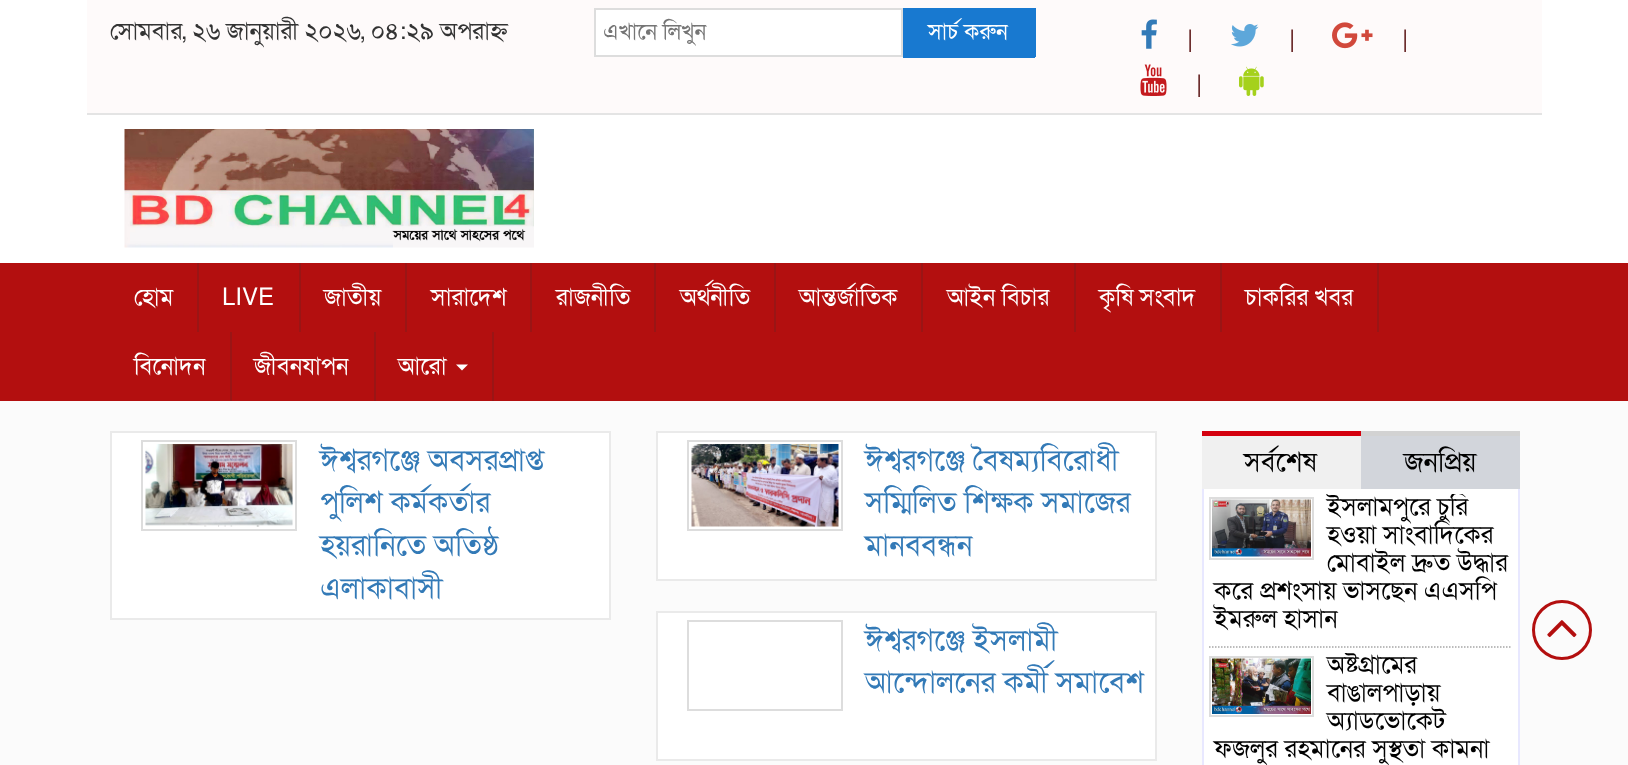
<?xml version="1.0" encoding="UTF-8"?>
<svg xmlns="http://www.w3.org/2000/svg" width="1628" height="765">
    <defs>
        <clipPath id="clip1"><rect x="1209" y="494" width="303" height="153"/></clipPath>
        <clipPath id="clip2"><rect x="1209" y="653" width="303" height="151"/></clipPath>
    </defs>
    <rect width="100%" height="100%" fill="#FBFBFB"/>
    <rect x="0" y="0" width="1628" height="263" fill="#FFFFFF"/>
    <rect x="87" y="0" width="1455" height="113" fill="#FEFAFA"/>
    <rect x="87" y="113" width="1455" height="2" fill="#E4E4E4"/>
    <text x="110" y="39" font-family="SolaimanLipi" font-size="24" fill="#333333">সোমবার, ২৬ জানুয়ারী ২০২৬, ০৪:২৯ অপরাহ্ন</text>
    <rect x="595" y="9" width="307" height="47" fill="#FFFFFF" stroke="#DDDDDD" stroke-width="2"/>
    <text x="603" y="39" font-family="SolaimanLipi" font-size="22.5" fill="#757575">এখানে লিখুন</text>
    <rect x="903" y="8" width="131" height="48" fill="#1879D0"/>
    <rect x="1034" y="8" width="2" height="49" fill="#1879D0"/>
    <rect x="903" y="56" width="132" height="2" fill="#1879D0"/>
    <text x="928" y="39" font-family="SolaimanLipi" font-size="22.5" fill="#FFFFFF">সার্চ করুন</text>
    <image x="1141" y="19" width="16" height="30" href="img_01.png"/>
    <text x="1187" y="47" font-family="SolaimanLipi" font-size="24" fill="#4D0202">|</text>
    <image x="1231" y="24" width="28" height="23" href="img_02.png"/>
    <text x="1289" y="47" font-family="SolaimanLipi" font-size="24" fill="#4D0202">|</text>
    <image x="1332" y="22" width="41" height="27" href="img_03.png"/>
    <text x="1402" y="47" font-family="SolaimanLipi" font-size="24" fill="#4D0202">|</text>
    <image x="1140" y="64" width="27" height="32" href="img_04.png"/>
    <text x="1196" y="92" font-family="SolaimanLipi" font-size="24" fill="#4D0202">|</text>
    <image x="1239" y="66" width="25" height="30" href="img_05.png"/>
    <image x="124" y="129" width="410" height="119" href="img_06.png"/>
    <rect x="0" y="263" width="1628" height="138" fill="#B30F0F"/>
    <rect x="197" y="263" width="2" height="69" fill="#9A1515"/>
    <text x="134" y="305" font-family="SolaimanLipi" font-size="24" fill="#FFFFFF">হোম</text>
    <rect x="299" y="263" width="2" height="69" fill="#9A1515"/>
    <text x="222" y="305" font-family="SolaimanLipi" font-size="24" fill="#FFFFFF">LIVE</text>
    <rect x="405" y="263" width="2" height="69" fill="#9A1515"/>
    <text x="324" y="305" font-family="SolaimanLipi" font-size="24" fill="#FFFFFF">জাতীয়</text>
    <rect x="530" y="263" width="2" height="69" fill="#9A1515"/>
    <text x="431" y="305" font-family="SolaimanLipi" font-size="24" fill="#FFFFFF">সারাদেশ</text>
    <rect x="654" y="263" width="2" height="69" fill="#9A1515"/>
    <text x="556" y="305" font-family="SolaimanLipi" font-size="24" fill="#FFFFFF">রাজনীতি</text>
    <rect x="774" y="263" width="2" height="69" fill="#9A1515"/>
    <text x="680" y="305" font-family="SolaimanLipi" font-size="24" fill="#FFFFFF">অর্থনীতি</text>
    <rect x="921" y="263" width="2" height="69" fill="#9A1515"/>
    <text x="799" y="305" font-family="SolaimanLipi" font-size="24" fill="#FFFFFF">আন্তর্জাতিক</text>
    <rect x="1074" y="263" width="2" height="69" fill="#9A1515"/>
    <text x="947" y="305" font-family="SolaimanLipi" font-size="24" fill="#FFFFFF">আইন বিচার</text>
    <rect x="1220" y="263" width="2" height="69" fill="#9A1515"/>
    <text x="1099" y="305" font-family="SolaimanLipi" font-size="24" fill="#FFFFFF">কৃষি সংবাদ</text>
    <rect x="1377" y="263" width="2" height="69" fill="#9A1515"/>
    <text x="1245" y="305" font-family="SolaimanLipi" font-size="24" fill="#FFFFFF">চাকরির খবর</text>
    <rect x="230" y="332" width="2" height="69" fill="#9A1515"/>
    <text x="134" y="374" font-family="SolaimanLipi" font-size="24" fill="#FFFFFF">বিনোদন</text>
    <rect x="374" y="332" width="2" height="69" fill="#9A1515"/>
    <text x="254" y="374" font-family="SolaimanLipi" font-size="24" fill="#FFFFFF">জীবনযাপন</text>
    <rect x="492" y="332" width="2" height="69" fill="#9A1515"/>
    <text x="398" y="374" font-family="SolaimanLipi" font-size="24" fill="#FFFFFF">আরো</text>
    <path d="M 456 364.5 H 468 L 462 370.5 Z" fill="#FFFFFF"/>
    <rect x="111" y="432" width="499" height="187" fill="#FFFFFF" stroke="#EAEAEA" stroke-width="2"/>
    <rect x="142" y="441" width="154" height="89" fill="none" stroke="#DDDDDD" stroke-width="2"/>
    <image x="145" y="444" width="148" height="83" href="img_07.png"/>
    <text font-family="SolaimanLipi" font-size="30" fill="#337AB7">
        <tspan x="320" y="470">ঈশ্বরগঞ্জে অবসরপ্রাপ্ত</tspan>
        <tspan x="320" y="512">পুলিশ কর্মকর্তার</tspan>
        <tspan x="320" y="555">হয়রানিতে অতিষ্ঠ</tspan>
        <tspan x="320" y="598">এলাকাবাসী</tspan>
    </text>
    <rect x="657" y="432" width="499" height="148" fill="#FFFFFF" stroke="#EAEAEA" stroke-width="2"/>
    <rect x="688" y="441" width="154" height="89" fill="none" stroke="#DDDDDD" stroke-width="2"/>
    <image x="691" y="444" width="148" height="83" href="img_08.png"/>
    <text font-family="SolaimanLipi" font-size="30" fill="#337AB7">
        <tspan x="865" y="470">ঈশ্বরগঞ্জে বৈষম্যবিরোধী</tspan>
        <tspan x="865" y="512">সম্মিলিত শিক্ষক সমাজের</tspan>
        <tspan x="865" y="555">মানববন্ধন</tspan>
    </text>
    <rect x="657" y="612" width="499" height="148" fill="#FFFFFF" stroke="#EAEAEA" stroke-width="2"/>
    <rect x="688" y="621" width="154" height="89" fill="none" stroke="#DDDDDD" stroke-width="2"/>
    <text font-family="SolaimanLipi" font-size="30" fill="#337AB7">
        <tspan x="865" y="650">ঈশ্বরগঞ্জে ইসলামী</tspan>
        <tspan x="865" y="692">আন্দোলনের কর্মী সমাবেশ</tspan>
    </text>
    <rect x="1204" y="489" width="314" height="276" fill="#FFFFFF"/>
    <rect x="1361" y="436" width="159" height="53" fill="#D2D5DB"/>
    <rect x="1202" y="436" width="159" height="53" fill="#F0F0F0"/>
    <rect x="1202" y="431" width="159" height="5" fill="#D4000E"/>
    <text x="1244" y="471" font-family="SolaimanLipi" font-size="27.5" fill="#000000">সর্বশেষ</text>
    <rect x="1361" y="431" width="159" height="5" fill="#D2D2D2"/>
    <text x="1404" y="471" font-family="SolaimanLipi" font-size="27.5" fill="#000000">জনপ্রিয়</text>
    <rect x="1518" y="489" width="2" height="276" fill="#E8E8FF"/>
    <rect x="1202" y="489" width="2" height="276" fill="#E8E8FF"/>
    <path d="M 1209 647 H 1512" fill="none" stroke="#A6A6A6" stroke-width="1.5" stroke-dasharray="1.5 1.5"/>
    <g clip-path="url(#clip1)">
        <text x="1327" y="515" font-family="SolaimanLipi" font-size="25.5" fill="#000000">ইসলামপুরে চুরি</text>
    </g>
    <text font-family="SolaimanLipi" font-size="25.5" fill="#000000">
        <tspan x="1327" y="543">হওয়া সাংবাদিকের</tspan>
        <tspan x="1327" y="571">মোবাইল দ্রুত উদ্ধার</tspan>
    </text>
    <text font-family="SolaimanLipi" font-size="25.5" fill="#000000">
        <tspan x="1214" y="599">করে প্রশংসায় ভাসছেন এএসপি</tspan>
        <tspan x="1214" y="627">ইমরুল হাসান</tspan>
    </text>
    <rect x="1210" y="498" width="103" height="61" fill="none" stroke="#DDDDDD" stroke-width="2"/>
    <image x="1212" y="499" width="99" height="58" href="img_09.png"/>
    <g clip-path="url(#clip2)">
        <text x="1327" y="673" font-family="SolaimanLipi" font-size="25.5" fill="#000000">অষ্টগ্রামের</text>
    </g>
    <text font-family="SolaimanLipi" font-size="25.5" fill="#000000">
        <tspan x="1327" y="701">বাঙালপাড়ায়</tspan>
        <tspan x="1327" y="729">অ্যাডভোকেট</tspan>
    </text>
    <text x="1214" y="757" font-family="SolaimanLipi" font-size="25.5" fill="#000000">ফজলুর রহমানের সুস্থতা কামনা</text>
    <rect x="1210" y="657" width="103" height="59" fill="none" stroke="#DDDDDD" stroke-width="2"/>
    <image x="1212" y="658" width="99" height="56" href="img_10.png"/>
    <circle cx="1562" cy="630" r="28.5" fill="none" stroke="#B30F0F" stroke-width="3"/>
    <image x="1547" y="620" width="30" height="18" href="img_11.png"/>
</svg>
